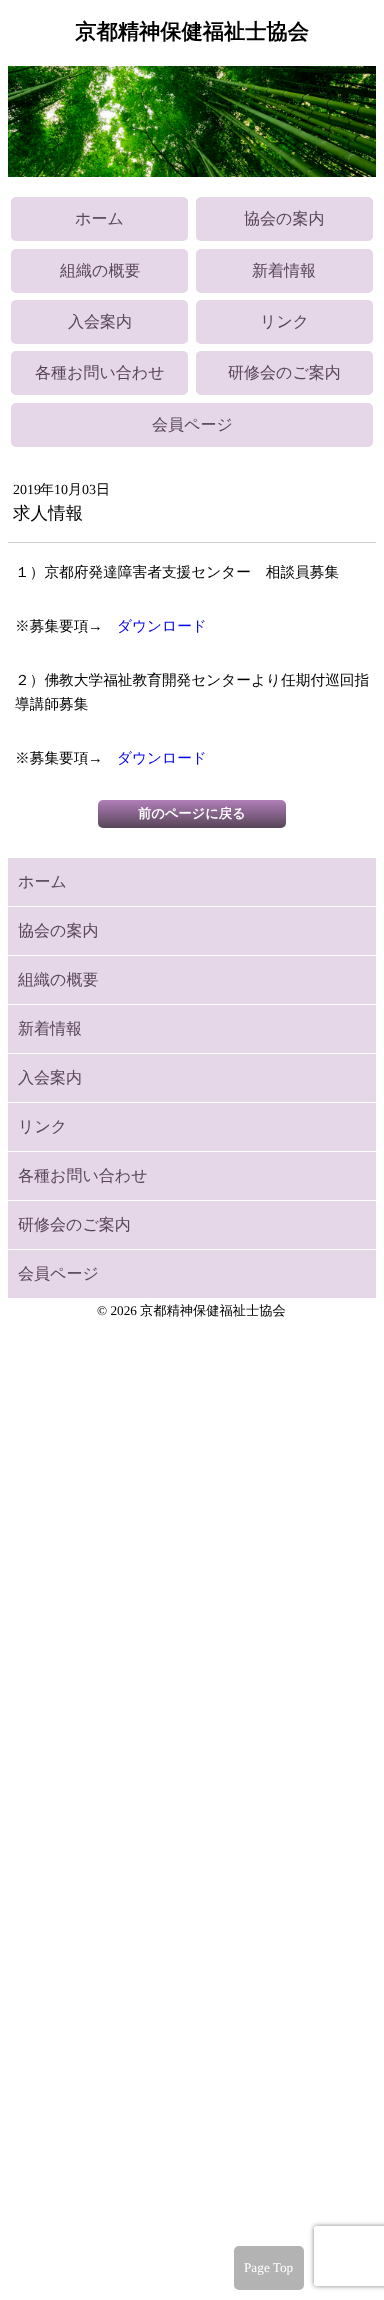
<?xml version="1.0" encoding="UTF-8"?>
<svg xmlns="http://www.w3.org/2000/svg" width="384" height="2300">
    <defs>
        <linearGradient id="g1" gradientUnits="userSpaceOnUse" x1="192" y1="800" x2="192" y2="828"><stop offset="0" stop-color="#B07FB8"/><stop offset="1" stop-color="#584559"/><stop offset="1" stop-color="#8C1504"/></linearGradient>
        <clipPath id="clip1"><path d="M 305 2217 H 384 V 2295 H 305 Z M 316 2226 H 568 C 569 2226 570 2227 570 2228 V 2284 C 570 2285 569 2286 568 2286 H 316 C 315 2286 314 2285 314 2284 V 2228 C 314 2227 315 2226 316 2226 Z" clip-rule="evenodd"/></clipPath>
        <filter id="blur1" x="-50%" y="-200%" width="200%" height="500%"><feGaussianBlur stdDeviation="2.5"/></filter>
    </defs>
    <rect width="100%" height="100%" fill="#FFFFFF"/>
    <text x="75" y="39" font-family="WenQuanYi Zen Hei" font-size="21.25" font-weight="700" fill="#000000">京都精神保健福祉士協会</text>
    <image x="8" y="66" width="368" height="111" href="img_01.png"/>
    <rect x="11" y="197" width="177" height="44" rx="5" fill="#E5D6E8"/>
    <text x="75" y="224" font-family="WenQuanYi Zen Hei" font-size="16" font-weight="500" fill="#584559">ホーム</text>
    <rect x="196" y="197" width="177" height="44" rx="5" fill="#E5D6E8"/>
    <text x="244" y="224" font-family="WenQuanYi Zen Hei" font-size="16" font-weight="500" fill="#584559">協会の案内</text>
    <rect x="11" y="249" width="177" height="44" rx="5" fill="#E5D6E8"/>
    <text x="60" y="276" font-family="WenQuanYi Zen Hei" font-size="16" font-weight="500" fill="#584559">組織の概要</text>
    <rect x="196" y="249" width="177" height="44" rx="5" fill="#E5D6E8"/>
    <text x="252" y="276" font-family="WenQuanYi Zen Hei" font-size="16" font-weight="500" fill="#584559">新着情報</text>
    <rect x="11" y="300" width="177" height="44" rx="5" fill="#E5D6E8"/>
    <text x="68" y="327" font-family="WenQuanYi Zen Hei" font-size="16" font-weight="500" fill="#584559">入会案内</text>
    <rect x="196" y="300" width="177" height="44" rx="5" fill="#E5D6E8"/>
    <text x="260" y="327" font-family="WenQuanYi Zen Hei" font-size="16" font-weight="500" fill="#584559">リンク</text>
    <rect x="11" y="351" width="177" height="44" rx="5" fill="#E5D6E8"/>
    <text x="35" y="378" font-family="WenQuanYi Zen Hei" font-size="16" font-weight="500" fill="#584559">各種お問い合わせ</text>
    <rect x="196" y="351" width="177" height="44" rx="5" fill="#E5D6E8"/>
    <text x="228" y="378" font-family="WenQuanYi Zen Hei" font-size="16" font-weight="500" fill="#584559">研修会のご案内</text>
    <rect x="11" y="403" width="362" height="44" rx="5" fill="#E5D6E8"/>
    <text x="152" y="430" font-family="WenQuanYi Zen Hei" font-size="16" font-weight="500" fill="#584559">会員ページ</text>
    <text x="13" y="494" font-family="Liberation Serif" font-size="14" fill="#000000">2019</text>
    <text x="40" y="494" font-family="WenQuanYi Zen Hei" font-size="14" font-weight="500" fill="#000000">年</text>
    <text x="54" y="494" font-family="Liberation Serif" font-size="14" fill="#000000">10</text>
    <text x="68" y="494" font-family="WenQuanYi Zen Hei" font-size="14" font-weight="500" fill="#000000">月</text>
    <text x="82" y="494" font-family="Liberation Serif" font-size="14" fill="#000000">03</text>
    <text x="96" y="494" font-family="WenQuanYi Zen Hei" font-size="14" font-weight="500" fill="#000000">日</text>
    <text x="13" y="519" font-family="WenQuanYi Zen Hei" font-size="17.5" font-weight="500" fill="#000000">求人情報</text>
    <rect x="8" y="542" width="368" height="1" fill="#CCCCCC"/>
    <text x="15" y="577" font-family="WenQuanYi Zen Hei" font-size="14.7" font-weight="500" fill="#000000">１）京都府発達障害者支援センター　相談員募集</text>
    <text x="15" y="631" font-family="WenQuanYi Zen Hei" font-size="14.7" font-weight="500" fill="#000000">※募集要項</text>
    <text x="88" y="631" font-family="Liberation Serif" font-size="14.7" fill="#000000">→</text>
    <text x="117" y="631" font-family="WenQuanYi Zen Hei" font-size="14.7" font-weight="500" fill="#0000EE">ダウンロード</text>
    <text font-family="WenQuanYi Zen Hei" font-size="14.7" font-weight="500" fill="#000000">
        <tspan x="15" y="685">２）佛教大学福祉教育開発センターより任期付巡回指</tspan>
        <tspan x="15" y="709">導講師募集</tspan>
    </text>
    <text x="15" y="763" font-family="WenQuanYi Zen Hei" font-size="14.7" font-weight="500" fill="#000000">※募集要項</text>
    <text x="88" y="763" font-family="Liberation Serif" font-size="14.7" fill="#000000">→</text>
    <text x="117" y="763" font-family="WenQuanYi Zen Hei" font-size="14.7" font-weight="500" fill="#0000EE">ダウンロード</text>
    <rect x="98" y="800" width="188" height="28" rx="5" fill="url(#g1)"/>
    <text x="138" y="818" font-family="WenQuanYi Zen Hei" font-size="13.25" font-weight="700" fill="#FFFFFF">前のページに戻る</text>
    <rect x="8" y="858" width="368" height="48" fill="#E5D6E8"/>
    <text x="18" y="887" font-family="WenQuanYi Zen Hei" font-size="16" font-weight="500" fill="#584559">ホーム</text>
    <rect x="8" y="907" width="368" height="48" fill="#E5D6E8"/>
    <text x="18" y="936" font-family="WenQuanYi Zen Hei" font-size="16" font-weight="500" fill="#584559">協会の案内</text>
    <rect x="8" y="956" width="368" height="48" fill="#E5D6E8"/>
    <text x="18" y="985" font-family="WenQuanYi Zen Hei" font-size="16" font-weight="500" fill="#584559">組織の概要</text>
    <rect x="8" y="1005" width="368" height="48" fill="#E5D6E8"/>
    <text x="18" y="1034" font-family="WenQuanYi Zen Hei" font-size="16" font-weight="500" fill="#584559">新着情報</text>
    <rect x="8" y="1054" width="368" height="48" fill="#E5D6E8"/>
    <text x="18" y="1083" font-family="WenQuanYi Zen Hei" font-size="16" font-weight="500" fill="#584559">入会案内</text>
    <rect x="8" y="1103" width="368" height="48" fill="#E5D6E8"/>
    <text x="18" y="1132" font-family="WenQuanYi Zen Hei" font-size="16" font-weight="500" fill="#584559">リンク</text>
    <rect x="8" y="1152" width="368" height="48" fill="#E5D6E8"/>
    <text x="18" y="1181" font-family="WenQuanYi Zen Hei" font-size="16" font-weight="500" fill="#584559">各種お問い合わせ</text>
    <rect x="8" y="1201" width="368" height="48" fill="#E5D6E8"/>
    <text x="18" y="1230" font-family="WenQuanYi Zen Hei" font-size="16" font-weight="500" fill="#584559">研修会のご案内</text>
    <rect x="8" y="1250" width="368" height="48" fill="#E5D6E8"/>
    <text x="18" y="1279" font-family="WenQuanYi Zen Hei" font-size="16" font-weight="500" fill="#584559">会員ページ</text>
    <text x="97" y="1315" font-family="Liberation Serif" font-size="13.25" fill="#000000">© 2026</text>
    <text x="140" y="1315" font-family="WenQuanYi Zen Hei" font-size="13.25" font-weight="500" fill="#000000">京都精神保健福祉士協会</text>
    <rect x="234" y="2246" width="70" height="44" rx="5" fill="#B3B3B3"/>
    <text x="244" y="2272" font-family="Liberation Serif" font-size="13.25" fill="#FFFFFF">Page Top</text>
    <g clip-path="url(#clip1)">
        <rect x="314" y="2226" width="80" height="60" rx="2" fill="#808080" filter="url(#blur1)"/>
    </g>
</svg>
